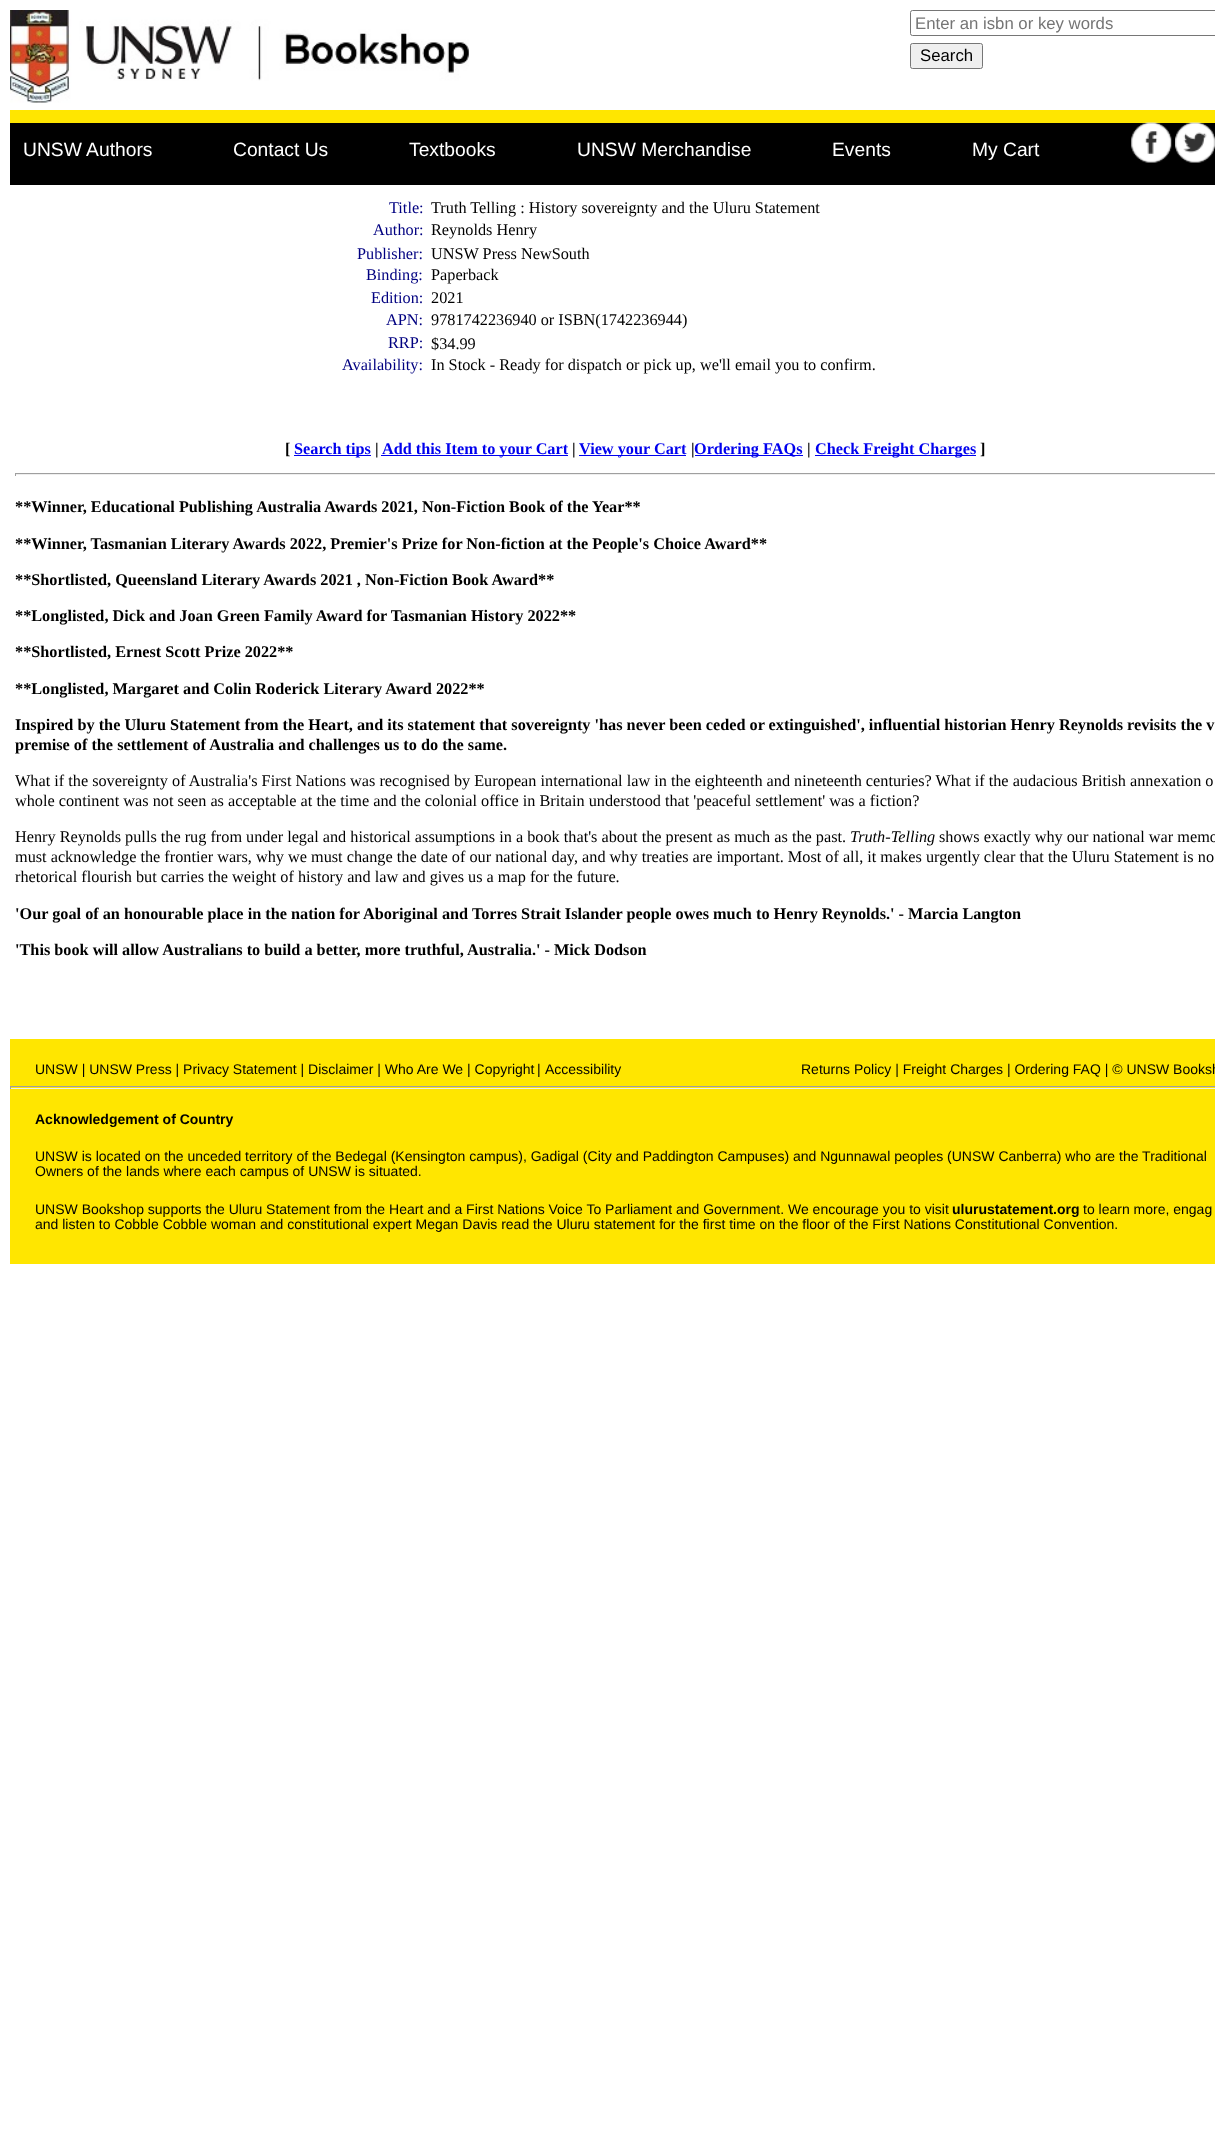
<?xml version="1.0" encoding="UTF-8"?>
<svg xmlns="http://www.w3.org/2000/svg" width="1215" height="2133">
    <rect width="100%" height="100%" fill="#FFFFFF"/>
    <image x="10" y="10" width="459" height="93" href="img_01.png"/>
    <rect x="910.5" y="10.5" width="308" height="25" rx="2" fill="none" stroke="#767676"/>
    <text x="915" y="29" font-family="Liberation Sans" font-size="16.75" fill="#757575">Enter an isbn or key words</text>
    <rect x="910.5" y="43.5" width="72" height="25" rx="2" fill="#EFEFEF" stroke="#767676"/>
    <text x="920" y="61" font-family="Liberation Sans" font-size="16.75" fill="#000000">Search</text>
    <rect x="10" y="110" width="1205" height="13" fill="#FFE600"/>
    <rect x="10" y="123" width="1205" height="62" fill="#000000"/>
    <text x="23" y="156" font-family="Liberation Sans" font-size="19.25" fill="#FFFFFF">UNSW Authors</text>
    <text x="233" y="156" font-family="Liberation Sans" font-size="19.25" fill="#FFFFFF">Contact Us</text>
    <text x="409" y="156" font-family="Liberation Sans" font-size="19.25" fill="#FFFFFF">Textbooks</text>
    <text x="577" y="156" font-family="Liberation Sans" font-size="19.25" fill="#FFFFFF">UNSW Merchandise</text>
    <text x="832" y="156" font-family="Liberation Sans" font-size="19.25" fill="#FFFFFF">Events</text>
    <text x="972" y="156" font-family="Liberation Sans" font-size="19.25" fill="#FFFFFF">My Cart</text>
    <image x="1131" y="122" width="41" height="41" href="img_02.png"/>
    <image x="1175" y="122" width="40" height="41" href="img_03.png"/>
    <text x="389" y="213" font-family="Liberation Serif" font-size="16.25" fill="#000080">Title:</text>
    <text x="431" y="213" font-family="Liberation Serif" font-size="16.25" fill="#000000">Truth Telling : History sovereignty and the Uluru Statement</text>
    <text x="373" y="235" font-family="Liberation Serif" font-size="16.25" fill="#000080">Author:</text>
    <text x="431" y="235" font-family="Liberation Serif" font-size="16.25" fill="#000000">Reynolds Henry</text>
    <text x="357" y="259" font-family="Liberation Serif" font-size="16.25" fill="#000080">Publisher:</text>
    <text x="431" y="259" font-family="Liberation Serif" font-size="16.25" fill="#000000">UNSW Press NewSouth</text>
    <text x="366" y="280" font-family="Liberation Serif" font-size="16.25" fill="#000080">Binding:</text>
    <text x="431" y="280" font-family="Liberation Serif" font-size="16.25" fill="#000000">Paperback</text>
    <text x="371" y="303" font-family="Liberation Serif" font-size="16.25" fill="#000080">Edition:</text>
    <text x="431" y="303" font-family="Liberation Serif" font-size="16.25" fill="#000000">2021</text>
    <text x="386" y="325" font-family="Liberation Serif" font-size="16.25" fill="#000080">APN:</text>
    <text x="431" y="325" font-family="Liberation Serif" font-size="16.25" fill="#000000">9781742236940 or ISBN(1742236944)</text>
    <text x="388" y="348" font-family="Liberation Serif" font-size="16.25" fill="#000080">RRP:</text>
    <text x="431" y="349" font-family="Liberation Serif" font-size="16.25" fill="#000000">$34.99</text>
    <text x="342" y="370" font-family="Liberation Serif" font-size="16.25" fill="#000080">Availability:</text>
    <text x="431" y="370" font-family="Liberation Serif" font-size="16.25" fill="#000000">In Stock - Ready for dispatch or pick up, we'll email you to confirm.</text>
    <text x="285" y="454" font-family="Liberation Serif" font-size="16.25" font-weight="700" fill="#000000">[</text>
    <rect x="294" y="455" width="77" height="1" fill="#0000EE"/>
    <text x="294" y="454" font-family="Liberation Serif" font-size="16.25" font-weight="700" fill="#0000EE">Search tips</text>
    <text x="375" y="454" font-family="Liberation Serif" font-size="16.25" font-weight="700" fill="#000000">|</text>
    <rect x="381" y="455" width="187" height="1" fill="#0000EE"/>
    <text x="382" y="454" font-family="Liberation Serif" font-size="16.25" font-weight="700" fill="#0000EE">Add this Item to your Cart</text>
    <text x="572" y="454" font-family="Liberation Serif" font-size="16.25" font-weight="700" fill="#000000">|</text>
    <rect x="579" y="455" width="107" height="1" fill="#0000EE"/>
    <text x="579" y="454" font-family="Liberation Serif" font-size="16.25" font-weight="700" fill="#0000EE">View your Cart</text>
    <text x="691" y="454" font-family="Liberation Serif" font-size="16.25" font-weight="700" fill="#000000">|</text>
    <rect x="695" y="455" width="108" height="1" fill="#0000EE"/>
    <text x="694" y="454" font-family="Liberation Serif" font-size="16.25" font-weight="700" fill="#0000EE">Ordering FAQs</text>
    <text x="807" y="454" font-family="Liberation Serif" font-size="16.25" font-weight="700" fill="#000000">|</text>
    <rect x="815" y="455" width="161" height="1" fill="#0000EE"/>
    <text x="815" y="454" font-family="Liberation Serif" font-size="16.25" font-weight="700" fill="#0000EE">Check Freight Charges</text>
    <text x="980" y="454" font-family="Liberation Serif" font-size="16.25" font-weight="700" fill="#000000">]</text>
    <rect x="15" y="473" width="1200" height="1" fill="#9F9F9F"/>
    <rect x="15" y="474" width="1200" height="1" fill="#EEEEEE"/>
    <rect x="15" y="473" width="1" height="3" fill="#9F9F9F"/>
    <text x="15" y="512" font-family="Liberation Serif" font-size="16.25" font-weight="700" fill="#000000">**Winner, Educational Publishing Australia Awards 2021, Non-Fiction Book of the Year**</text>
    <text x="15" y="549" font-family="Liberation Serif" font-size="16.25" font-weight="700" fill="#000000">**Winner, Tasmanian Literary Awards 2022, Premier's Prize for Non-fiction at the People's Choice Award**</text>
    <text x="15" y="585" font-family="Liberation Serif" font-size="16.25" font-weight="700" fill="#000000">**Shortlisted, Queensland Literary Awards 2021 , Non-Fiction Book Award**</text>
    <text x="15" y="621" font-family="Liberation Serif" font-size="16.25" font-weight="700" fill="#000000">**Longlisted, Dick and Joan Green Family Award for Tasmanian History 2022**</text>
    <text x="15" y="657" font-family="Liberation Serif" font-size="16.25" font-weight="700" fill="#000000">**Shortlisted, Ernest Scott Prize 2022**</text>
    <text x="15" y="694" font-family="Liberation Serif" font-size="16.25" font-weight="700" fill="#000000">**Longlisted, Margaret and Colin Roderick Literary Award 2022**</text>
    <text font-family="Liberation Serif" font-size="16.25" font-weight="700" fill="#000000">
        <tspan x="15" y="730">Inspired by the Uluru Statement from the Heart, and its statement that sovereignty 'has never been ceded or extinguished', influential historian Henry Reynolds revisits the v</tspan>
        <tspan x="15" y="750">premise of the settlement of Australia and challenges us to do the same.</tspan>
    </text>
    <text font-family="Liberation Serif" font-size="16.25" fill="#000000">
        <tspan x="15" y="786">What if the sovereignty of Australia's First Nations was recognised by European international law in the eighteenth and nineteenth centuries? What if the audacious British annexation o</tspan>
        <tspan x="15" y="806">whole continent was not seen as acceptable at the time and the colonial office in Britain understood that 'peaceful settlement' was a fiction?</tspan>
    </text>
    <text x="15" y="842" font-family="Liberation Serif" font-size="16.25" fill="#000000">Henry Reynolds pulls the rug from under legal and historical assumptions in a book that's about the present as much as the past.</text>
    <text x="850" y="842" font-family="Liberation Serif" font-size="16.25" font-style="italic" fill="#000000">Truth-Telling</text>
    <text x="939" y="842" font-family="Liberation Serif" font-size="16.25" fill="#000000">shows exactly why our national war memo</text>
    <text font-family="Liberation Serif" font-size="16.25" fill="#000000">
        <tspan x="15" y="862">must acknowledge the frontier wars, why we must change the date of our national day, and why treaties are important. Most of all, it makes urgently clear that the Uluru Statement is no</tspan>
        <tspan x="15" y="882">rhetorical flourish but carries the weight of history and law and gives us a map for the future.</tspan>
    </text>
    <text x="15" y="919" font-family="Liberation Serif" font-size="16.25" font-weight="700" fill="#000000">'Our goal of an honourable place in the nation for Aboriginal and Torres Strait Islander people owes much to Henry Reynolds.' - Marcia Langton</text>
    <text x="15" y="955" font-family="Liberation Serif" font-size="16.25" font-weight="700" fill="#000000">'This book will allow Australians to build a better, more truthful, Australia.' - Mick Dodson</text>
    <rect x="10" y="1039" width="1205" height="225" fill="#FFE600"/>
    <text x="35" y="1074" font-family="Liberation Sans" font-size="14" fill="#000000">UNSW | UNSW Press | Privacy Statement | Disclaimer | Who Are We | Copyright</text>
    <text x="537" y="1074" font-family="Liberation Sans" font-size="14" fill="#000000">|</text>
    <text x="545" y="1074" font-family="Liberation Sans" font-size="14" fill="#000000">Accessibility</text>
    <text x="801" y="1074" font-family="Liberation Sans" font-size="14" fill="#000000">Returns Policy | Freight Charges | Ordering FAQ | © UNSW Booksh</text>
    <rect x="10" y="1086" width="1205" height="1" fill="#9F9F9F"/>
    <rect x="10" y="1088" width="1205" height="1" fill="#EEEEEE"/>
    <rect x="10" y="1086" width="1" height="3" fill="#9F9F9F"/>
    <text x="35" y="1124" font-family="Liberation Sans" font-size="14" font-weight="700" fill="#000000">Acknowledgement of Country</text>
    <text font-family="Liberation Sans" font-size="14" fill="#000000">
        <tspan x="35" y="1161">UNSW is located on the unceded territory of the Bedegal (Kensington campus), Gadigal (City and Paddington Campuses) and Ngunnawal peoples (UNSW Canberra) who are the Traditional</tspan>
        <tspan x="35" y="1176">Owners of the lands where each campus of UNSW is situated.</tspan>
    </text>
    <text x="35" y="1214" font-family="Liberation Sans" font-size="14" fill="#000000">UNSW Bookshop supports the Uluru Statement from the Heart and a First Nations Voice To Parliament and Government. We encourage you to visit</text>
    <text x="952" y="1214" font-family="Liberation Sans" font-size="14" font-weight="700" fill="#000000">ulurustatement.org</text>
    <text x="1083" y="1214" font-family="Liberation Sans" font-size="14" fill="#000000">to learn more, engag</text>
    <text x="35" y="1229" font-family="Liberation Sans" font-size="14" fill="#000000">and listen to Cobble Cobble woman and constitutional expert Megan Davis read the Uluru statement for the first time on the floor of the First Nations Constitutional Convention.</text>
</svg>
